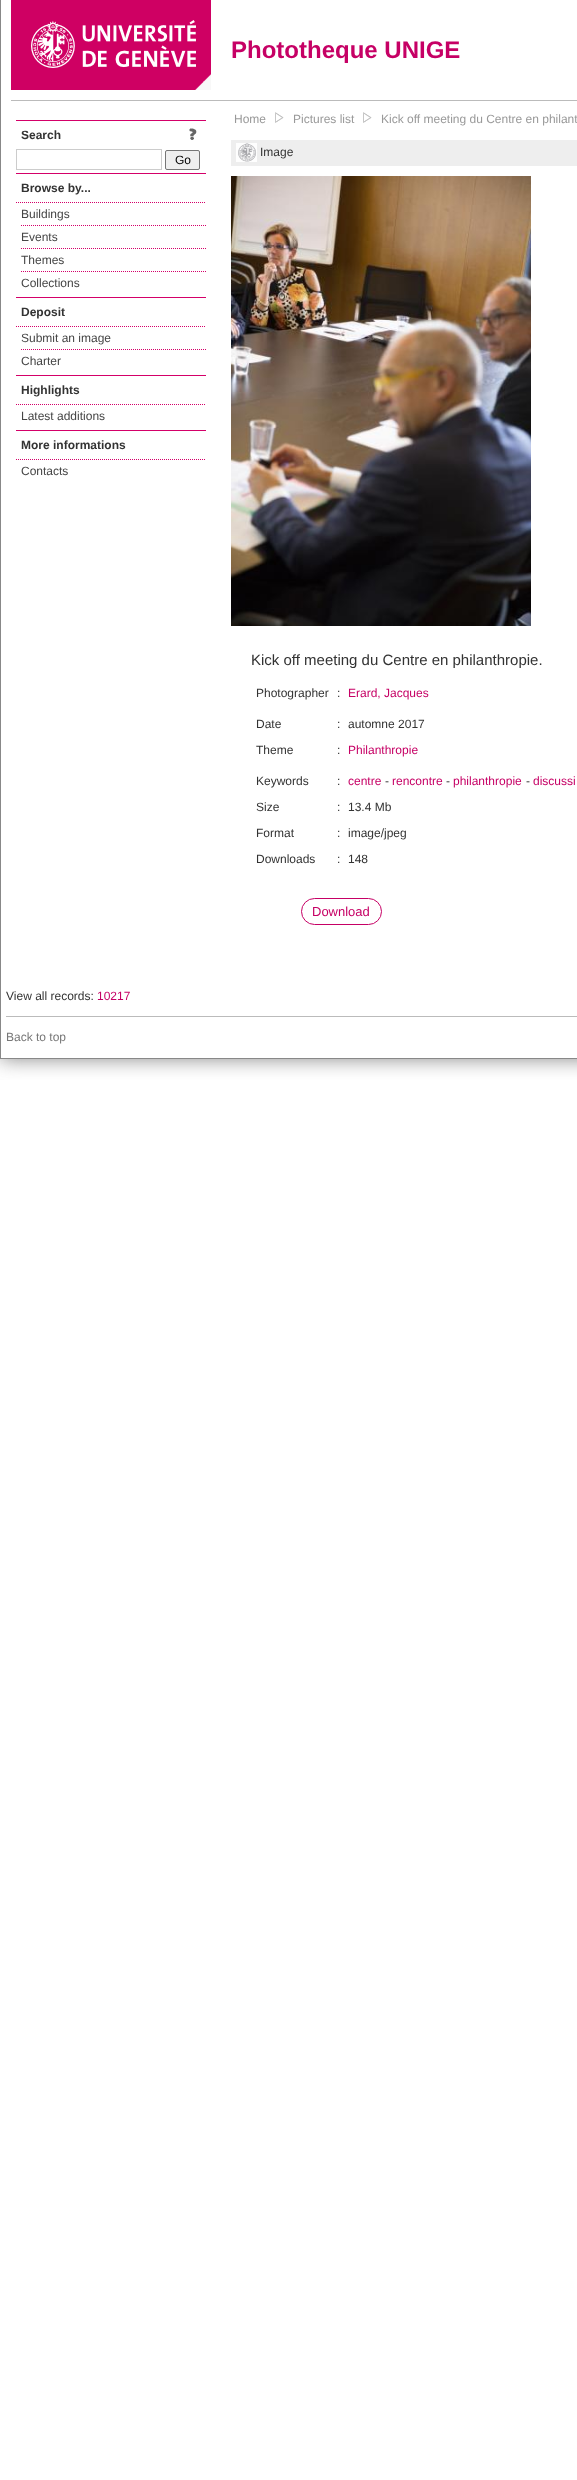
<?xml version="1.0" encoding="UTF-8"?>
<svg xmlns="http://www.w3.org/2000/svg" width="577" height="2480">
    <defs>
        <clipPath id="clip1"><rect x="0" y="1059" width="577" height="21"/></clipPath>
        <filter id="blur1" x="-50%" y="-200%" width="200%" height="500%"><feGaussianBlur stdDeviation="10"/></filter>
    </defs>
    <rect width="100%" height="100%" fill="#FFFFFF"/>
    <g clip-path="url(#clip1)">
        <rect x="0" y="0" width="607" height="1059" fill="#888888" filter="url(#blur1)"/>
    </g>
    <rect x="0" y="0" width="1" height="971" fill="#888888"/>
    <rect x="11" y="0" width="200" height="90" fill="#CF0063"/>
    <image x="195" y="74" width="16" height="16" href="img_01.png"/>
    <image x="31" y="20" width="165" height="48" href="img_02.png"/>
    <text x="231" y="58" font-family="Liberation Sans" font-size="24" font-weight="700" fill="#C60065">Phototheque UNIGE</text>
    <rect x="11" y="100" width="566" height="1" fill="#BBBBBB"/>
    <rect x="16" y="120" width="190" height="1" fill="#D40069"/>
    <text x="21" y="139" font-family="Liberation Sans" font-size="12" font-weight="700" fill="#333333">Search</text>
    <image x="189" y="128" width="8" height="12" href="img_03.png"/>
    <rect x="16.5" y="149.5" width="145" height="20" fill="none" stroke="#CCCCCC"/>
    <rect x="165.5" y="150.5" width="34" height="19" rx="1.5" fill="#EFEFEF" stroke="#767676"/>
    <text x="175" y="164" font-family="Liberation Sans" font-size="12" fill="#000000">Go</text>
    <rect x="16" y="173" width="190" height="1" fill="#D40069"/>
    <path d="M 16 202.5 H 206" fill="none" stroke="#D40069" stroke-dasharray="1 1"/>
    <text x="21" y="192" font-family="Liberation Sans" font-size="12" font-weight="700" fill="#333333">Browse by...</text>
    <path d="M 21 225.5 H 206" fill="none" stroke="#D40069" stroke-dasharray="1 1"/>
    <text x="21" y="218" font-family="Liberation Sans" font-size="12" fill="#454545">Buildings</text>
    <path d="M 21 248.5 H 206" fill="none" stroke="#D40069" stroke-dasharray="1 1"/>
    <text x="21" y="241" font-family="Liberation Sans" font-size="12" fill="#454545">Events</text>
    <path d="M 21 271.5 H 206" fill="none" stroke="#D40069" stroke-dasharray="1 1"/>
    <text font-family="Liberation Sans" font-size="12" fill="#454545">
        <tspan x="21" y="264">Themes</tspan>
        <tspan x="21" y="287">Collections</tspan>
    </text>
    <rect x="16" y="297" width="190" height="1" fill="#D40069"/>
    <path d="M 16 326.5 H 206" fill="none" stroke="#D40069" stroke-dasharray="1 1"/>
    <text x="21" y="316" font-family="Liberation Sans" font-size="12" font-weight="700" fill="#333333">Deposit</text>
    <path d="M 21 349.5 H 206" fill="none" stroke="#D40069" stroke-dasharray="1 1"/>
    <text font-family="Liberation Sans" font-size="12" fill="#454545">
        <tspan x="21" y="342">Submit an image</tspan>
        <tspan x="21" y="365">Charter</tspan>
    </text>
    <rect x="16" y="375" width="190" height="1" fill="#D40069"/>
    <path d="M 16 404.5 H 206" fill="none" stroke="#D40069" stroke-dasharray="1 1"/>
    <text x="21" y="394" font-family="Liberation Sans" font-size="12" font-weight="700" fill="#333333">Highlights</text>
    <text x="21" y="420" font-family="Liberation Sans" font-size="12" fill="#454545">Latest additions</text>
    <rect x="16" y="430" width="190" height="1" fill="#D40069"/>
    <path d="M 16 459.5 H 206" fill="none" stroke="#D40069" stroke-dasharray="1 1"/>
    <text x="21" y="449" font-family="Liberation Sans" font-size="12" font-weight="700" fill="#333333">More informations</text>
    <text x="21" y="475" font-family="Liberation Sans" font-size="12" fill="#454545">Contacts</text>
    <text x="234" y="123" font-family="Liberation Sans" font-size="12" fill="#999999">Home</text>
    <image x="275" y="112" width="9" height="11" href="img_04.png"/>
    <text x="293" y="123" font-family="Liberation Sans" font-size="12" fill="#999999">Pictures list</text>
    <image x="363" y="112" width="9" height="11" href="img_04.png"/>
    <text x="381" y="123" font-family="Liberation Sans" font-size="12" fill="#999999">Kick off meeting du Centre en philant</text>
    <rect x="231" y="140" width="346" height="26" fill="#EEEEEE"/>
    <image x="236" y="143" width="21" height="19" href="img_05.png"/>
    <text x="260" y="156" font-family="Liberation Sans" font-size="12" fill="#333333">Image</text>
    <image x="231" y="176" width="300" height="450" href="img_06.png"/>
    <text x="251" y="665" font-family="Liberation Sans" font-size="15" fill="#333333">Kick off meeting du Centre en philanthropie.</text>
    <text x="256" y="697" font-family="Liberation Sans" font-size="12" fill="#333333">Photographer</text>
    <text x="337" y="697" font-family="Liberation Sans" font-size="12" fill="#333333">:</text>
    <text x="348" y="697" font-family="Liberation Sans" font-size="12" fill="#C60065">Erard, Jacques</text>
    <text x="256" y="728" font-family="Liberation Sans" font-size="12" fill="#333333">Date</text>
    <text x="337" y="728" font-family="Liberation Sans" font-size="12" fill="#333333">:</text>
    <text x="348" y="728" font-family="Liberation Sans" font-size="12" fill="#333333">automne 2017</text>
    <text x="256" y="754" font-family="Liberation Sans" font-size="12" fill="#333333">Theme</text>
    <text x="337" y="754" font-family="Liberation Sans" font-size="12" fill="#333333">:</text>
    <text x="348" y="754" font-family="Liberation Sans" font-size="12" fill="#C60065">Philanthropie</text>
    <text x="256" y="785" font-family="Liberation Sans" font-size="12" fill="#333333">Keywords</text>
    <text x="337" y="785" font-family="Liberation Sans" font-size="12" fill="#333333">:</text>
    <text x="348" y="785" font-family="Liberation Sans" font-size="12" fill="#C60065">centre</text>
    <text x="385" y="785" font-family="Liberation Sans" font-size="12" fill="#333333">-</text>
    <text x="392" y="785" font-family="Liberation Sans" font-size="12" fill="#C60065">rencontre</text>
    <text x="446" y="785" font-family="Liberation Sans" font-size="12" fill="#333333">-</text>
    <text x="453" y="785" font-family="Liberation Sans" font-size="12" fill="#C60065">philanthropie</text>
    <text x="526" y="785" font-family="Liberation Sans" font-size="12" fill="#333333">-</text>
    <text x="533" y="785" font-family="Liberation Sans" font-size="12" fill="#C60065">discussi</text>
    <text x="256" y="811" font-family="Liberation Sans" font-size="12" fill="#333333">Size</text>
    <text x="337" y="811" font-family="Liberation Sans" font-size="12" fill="#333333">:</text>
    <text x="348" y="811" font-family="Liberation Sans" font-size="12" fill="#333333">13.4 Mb</text>
    <text x="256" y="837" font-family="Liberation Sans" font-size="12" fill="#333333">Format</text>
    <text x="337" y="837" font-family="Liberation Sans" font-size="12" fill="#333333">:</text>
    <text x="348" y="837" font-family="Liberation Sans" font-size="12" fill="#333333">image/jpeg</text>
    <text x="256" y="863" font-family="Liberation Sans" font-size="12" fill="#333333">Downloads</text>
    <text x="337" y="863" font-family="Liberation Sans" font-size="12" fill="#333333">:</text>
    <text x="348" y="863" font-family="Liberation Sans" font-size="12" fill="#333333">148</text>
    <rect x="301.5" y="898.5" width="80" height="26" rx="13" fill="none" stroke="#C60065"/>
    <text x="312" y="916" font-family="Liberation Sans" font-size="13" fill="#C60065">Download</text>
    <rect x="0" y="1058" width="577" height="1" fill="#888888"/>
    <rect x="0" y="971" width="1" height="88" fill="#888888"/>
    <rect x="6" y="1016" width="571" height="1" fill="#BBBBBB"/>
    <text x="6" y="1000" font-family="Liberation Sans" font-size="12" fill="#333333">View all records:</text>
    <text x="97" y="1000" font-family="Liberation Sans" font-size="12" fill="#C60065">10217</text>
    <text x="6" y="1041" font-family="Liberation Sans" font-size="12" fill="#777777">Back to top</text>
</svg>
